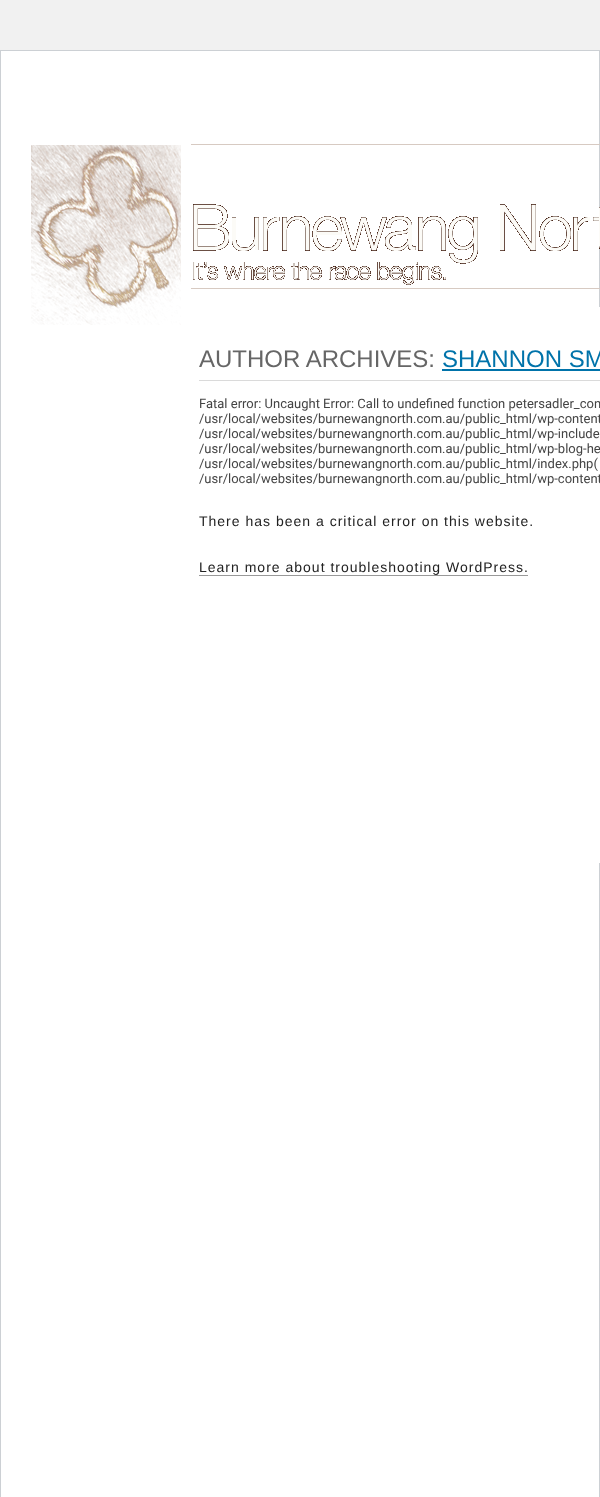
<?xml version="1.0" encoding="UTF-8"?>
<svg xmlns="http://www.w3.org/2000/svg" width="600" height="1497">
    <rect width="100%" height="100%" fill="#F1F1F1"/>
    <rect x="0.5" y="50.5" width="599" height="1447" fill="#FFFFFF" stroke="#CCD0D4"/>
    <rect x="191" y="144" width="409" height="1" fill="#D7CAC2"/>
    <rect x="191" y="288" width="409" height="1" fill="#D7CAC2"/>
    <image x="31" y="145" width="150" height="180" href="img_01.png"/>
    <image x="193" y="204" width="407" height="81" href="img_02.png"/>
    <rect x="599" y="307" width="1" height="556" fill="#FFFFFF"/>
    <rect x="199" y="380" width="401" height="1" fill="#DADADA"/>
    <text x="199" y="367" font-family="Liberation Sans" font-size="24" fill="#666666">AUTHOR ARCHIVES:</text>
    <text x="442" y="367" font-family="Liberation Sans" font-size="24" fill="#0073AA">SHANNON SM</text>
    <rect x="442" y="369" width="158" height="2" fill="#0073AA"/>
    <text font-family="Roboto" font-size="13" fill="#444444">
        <tspan x="199" y="408">Fatal error: Uncaught Error: Call to undefined function petersadler_con</tspan>
        <tspan x="199" y="423">/usr/local/websites/burnewangnorth.com.au/public_html/wp-content</tspan>
        <tspan x="199" y="438">/usr/local/websites/burnewangnorth.com.au/public_html/wp-include</tspan>
        <tspan x="199" y="453">/usr/local/websites/burnewangnorth.com.au/public_html/wp-blog-he</tspan>
        <tspan x="199" y="468">/usr/local/websites/burnewangnorth.com.au/public_html/index.php(</tspan>
        <tspan x="199" y="483">/usr/local/websites/burnewangnorth.com.au/public_html/wp-content</tspan>
    </text>
    <text x="199" y="526" font-family="Liberation Sans" font-size="14" letter-spacing="1" fill="#222222">There has been a critical error on this website.</text>
    <text x="199" y="572" font-family="Liberation Sans" font-size="14" letter-spacing="1" fill="#222222">Learn more about troubleshooting WordPress.</text>
    <rect x="199" y="575" width="329" height="1" fill="#999999"/>
</svg>
